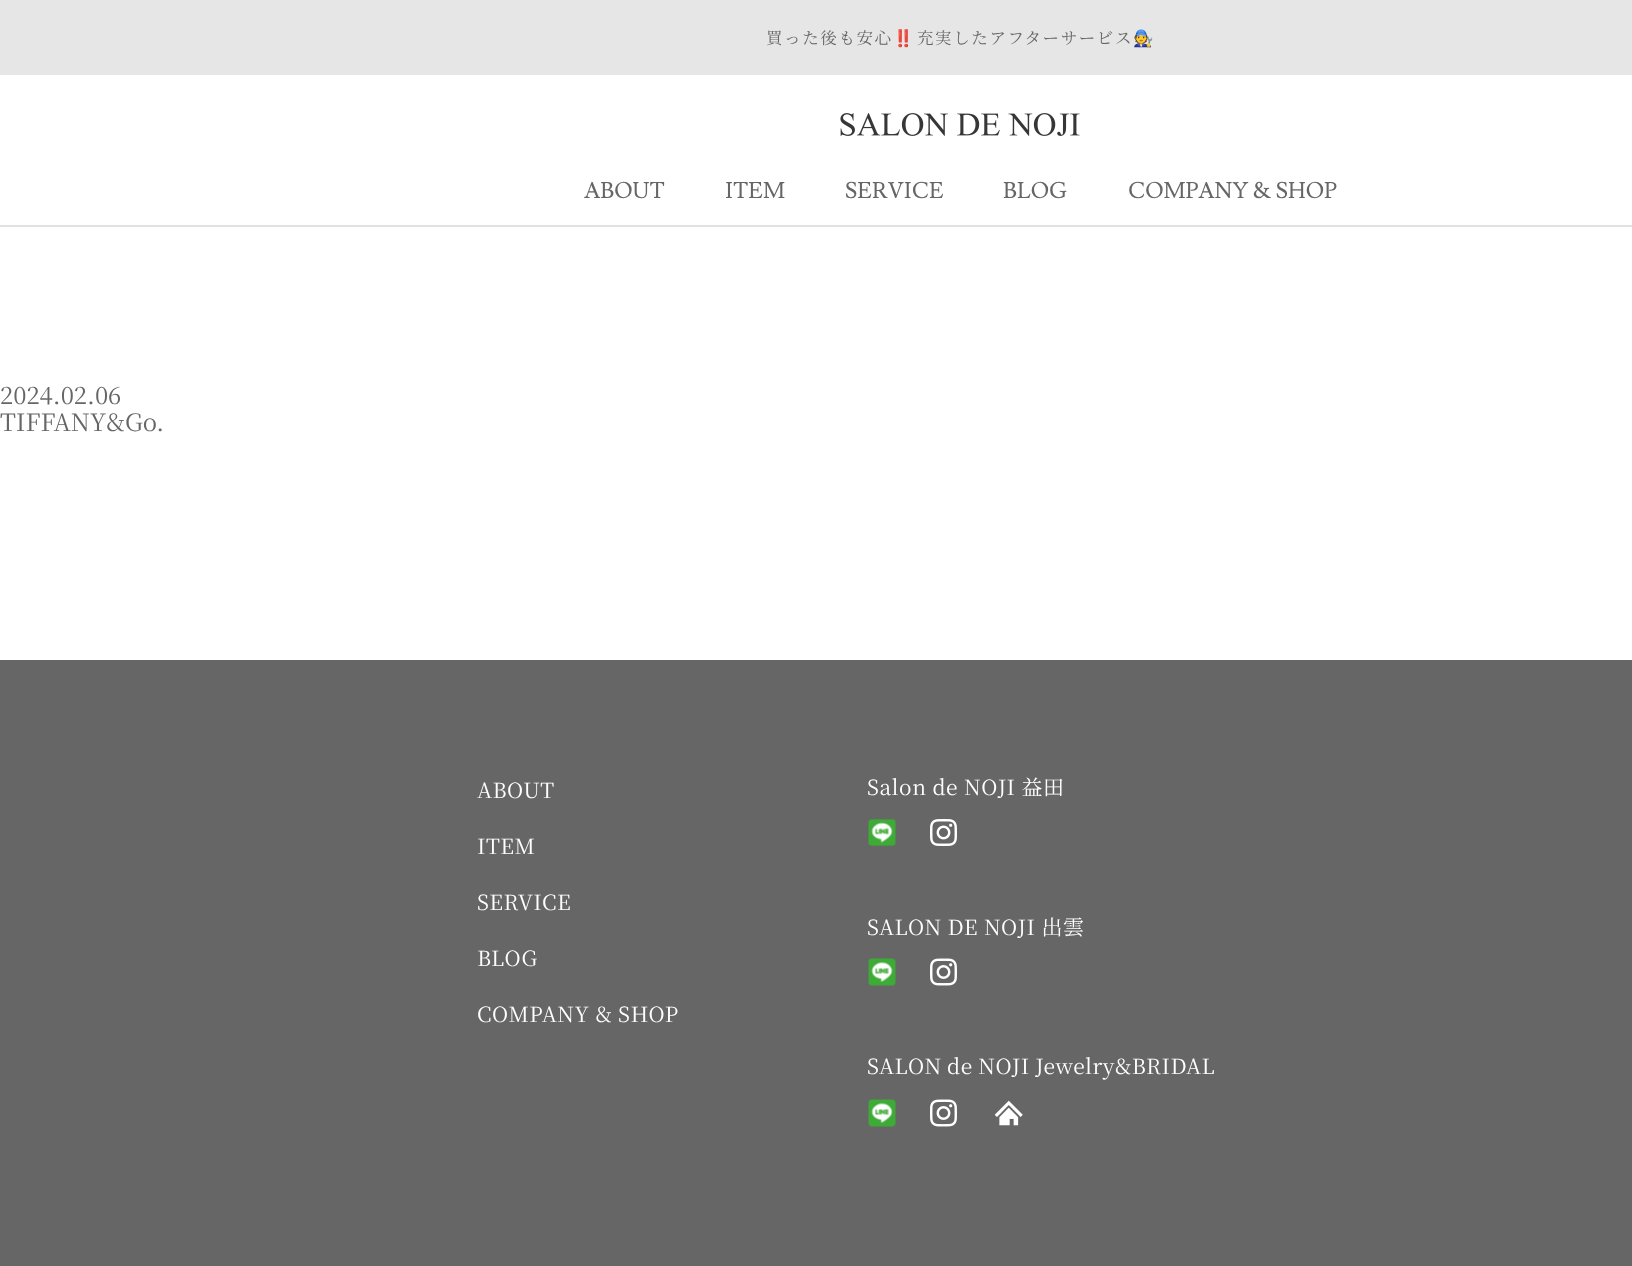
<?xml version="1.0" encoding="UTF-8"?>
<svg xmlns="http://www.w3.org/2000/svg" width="1632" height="1266">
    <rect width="100%" height="100%" fill="#FFFFFF"/>
    <rect x="0" y="225" width="1632" height="2" fill="#E1E1E1"/>
    <rect x="0" y="0" width="1632" height="75" fill="#E6E6E6"/>
    <text x="766" y="44" font-family="Noto Serif JP" font-size="16.5" letter-spacing="1.6" fill="#666666">買った後も安心</text>
    <text x="893" y="44" font-family="Noto Color Emoji" font-size="16.5" letter-spacing="1.6" fill="#666666">‼️</text>
    <text x="917" y="44" font-family="Noto Serif JP" font-size="16.5" letter-spacing="1.6" fill="#666666">充実したアフターサービス</text>
    <text x="1133" y="44" font-family="Noto Color Emoji" font-size="16.5" letter-spacing="1.6" fill="#666666">🧑‍🔧</text>
    <image x="840" y="113" width="240" height="23" href="img_01.png"/>
    <text x="584" y="198" font-family="Lusitana" font-size="22.5" fill="#666666">ABOUT</text>
    <text x="725" y="198" font-family="Lusitana" font-size="22.5" fill="#666666">ITEM</text>
    <text x="845" y="198" font-family="Lusitana" font-size="22.5" fill="#666666">SERVICE</text>
    <text x="1003" y="198" font-family="Lusitana" font-size="22.5" fill="#666666">BLOG</text>
    <text x="1128" y="198" font-family="Lusitana" font-size="22.5" fill="#666666">COMPANY &amp; SHOP</text>
    <text font-family="Noto Serif JP" font-size="24" fill="#666666">
        <tspan x="0" y="404">2024.02.06</tspan>
        <tspan x="0" y="431">TIFFANY&amp;Go.</tspan>
    </text>
    <rect x="0" y="660" width="1632" height="606" fill="#666666"/>
    <text x="477" y="798" font-family="Noto Serif JP" font-size="21" letter-spacing="0.5" fill="#FFFFFF">ABOUT</text>
    <text x="477" y="854" font-family="Noto Serif JP" font-size="21" letter-spacing="0.5" fill="#FFFFFF">ITEM</text>
    <text x="477" y="910" font-family="Noto Serif JP" font-size="21" letter-spacing="0.5" fill="#FFFFFF">SERVICE</text>
    <text x="477" y="966" font-family="Noto Serif JP" font-size="21" letter-spacing="0.5" fill="#FFFFFF">BLOG</text>
    <text x="477" y="1022" font-family="Noto Serif JP" font-size="21" letter-spacing="0.5" fill="#FFFFFF">COMPANY &amp; SHOP</text>
    <text x="867" y="795" font-family="Noto Serif JP" font-size="21" letter-spacing="0.5" fill="#FFFFFF">Salon de NOJI 益田</text>
    <image x="868" y="818" width="28" height="29" href="img_02.png"/>
    <image x="930" y="819" width="27" height="27" href="img_03.png"/>
    <text x="867" y="935" font-family="Noto Serif JP" font-size="21" letter-spacing="0.5" fill="#FFFFFF">SALON DE NOJI 出雲</text>
    <image x="868" y="958" width="28" height="28" href="img_04.png"/>
    <image x="930" y="958" width="27" height="28" href="img_05.png"/>
    <text x="867" y="1074" word-spacing="-0.5" font-family="Noto Serif JP" font-size="21" letter-spacing="0.5" fill="#FFFFFF">SALON de NOJI Jewelry&amp;BRIDAL</text>
    <image x="868" y="1099" width="28" height="28" href="img_04.png"/>
    <image x="930" y="1099" width="27" height="28" href="img_05.png"/>
    <image x="994" y="1100" width="29" height="26" href="img_06.png"/>
</svg>
